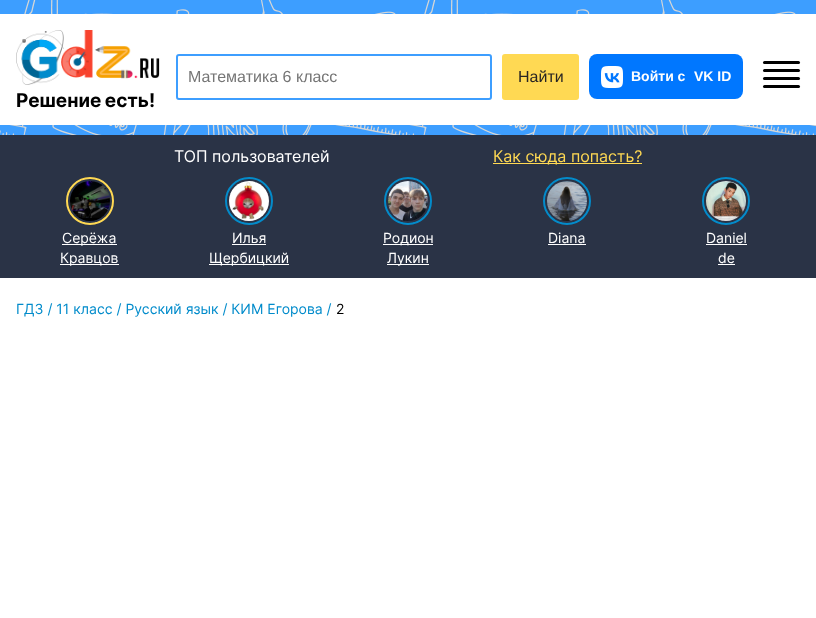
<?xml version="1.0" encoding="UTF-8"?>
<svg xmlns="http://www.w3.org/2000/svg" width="816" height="618">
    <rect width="100%" height="100%" fill="#3D9EFF"/>
    <image x="0" y="0" width="816" height="135" href="img_01.png"/>
    <rect x="0" y="14" width="816" height="111" fill="#FFFFFF"/>
    <rect x="177" y="55" width="314" height="44" rx="2" fill="none" stroke="#3D9EFF" stroke-width="2"/>
    <text x="188" y="82" font-family="Liberation Sans" font-size="16" fill="#757575">Математика 6 класс</text>
    <rect x="502" y="54" width="77" height="46" rx="3" fill="#FFD953"/>
    <text x="518" y="82" font-family="Liberation Sans" font-size="16" fill="#282523">Найти</text>
    <rect x="589" y="54" width="154" height="45" rx="8" fill="#0077FF"/>
    <image x="601" y="66" width="22" height="22" href="img_02.png"/>
    <text x="631" y="81" font-family="Liberation Sans" font-size="14" font-weight="700" fill="#FFFFFF">Войти с</text>
    <text x="694" y="81" font-family="Liberation Sans" font-size="14" font-weight="700" fill="#FFFFFF">VK ID</text>
    <rect x="763" y="61" width="37" height="3" rx="1.5" fill="#000000"/>
    <rect x="763" y="69" width="37" height="3" rx="1.5" fill="#000000"/>
    <rect x="763" y="77" width="37" height="3" rx="1.5" fill="#000000"/>
    <rect x="763" y="85" width="37" height="3" rx="1.5" fill="#000000"/>
    <image x="16" y="30" width="144" height="55" href="img_03.png"/>
    <text x="16" y="107" word-spacing="-1" font-family="Inter" font-size="19" font-weight="700" fill="#000000">Решение есть!</text>
    <rect x="0" y="135" width="816" height="143" fill="#2A3346"/>
    <text x="174" y="162" font-family="Inter" font-size="16" fill="#FFFFFF">ТОП пользователей</text>
    <rect x="493" y="163" width="149" height="1" fill="#FFD953"/>
    <text x="493" y="162" font-family="Inter" font-size="16" fill="#FFD953">Как сюда попасть?</text>
    <circle cx="90" cy="201" r="23" fill="none" stroke="#FFD953" stroke-width="2"/>
    <image x="70" y="181" width="40" height="40" href="img_04.png"/>
    <rect x="62" y="244" width="55" height="1" fill="#FFFFFF"/>
    <text x="62" y="243" font-family="Inter" font-size="14" fill="#FFFFFF">Серёжа</text>
    <rect x="60" y="264" width="59" height="1" fill="#FFFFFF"/>
    <text x="60" y="263" font-family="Inter" font-size="14" fill="#FFFFFF">Кравцов</text>
    <circle cx="249" cy="201" r="23" fill="none" stroke="#038BCA" stroke-width="2"/>
    <image x="229" y="181" width="40" height="40" href="img_05.png"/>
    <text x="232" y="243" font-family="Inter" font-size="14" fill="#FFFFFF">Илья</text>
    <rect x="232" y="244" width="34" height="1" fill="#FFFFFF"/>
    <rect x="209" y="264" width="80" height="1" fill="#FFFFFF"/>
    <text x="209" y="263" font-family="Inter" font-size="14" fill="#FFFFFF">Щербицкий</text>
    <circle cx="408" cy="201" r="23" fill="none" stroke="#038BCA" stroke-width="2"/>
    <image x="388" y="181" width="40" height="40" href="img_06.png"/>
    <rect x="383" y="244" width="50" height="1" fill="#FFFFFF"/>
    <text x="383" y="243" font-family="Inter" font-size="14" fill="#FFFFFF">Родион</text>
    <rect x="387" y="264" width="42" height="1" fill="#FFFFFF"/>
    <text x="387" y="263" font-family="Inter" font-size="14" fill="#FFFFFF">Лукин</text>
    <circle cx="567" cy="201" r="23" fill="none" stroke="#038BCA" stroke-width="2"/>
    <image x="547" y="181" width="40" height="40" href="img_07.png"/>
    <text x="548" y="243" font-family="Inter" font-size="14" fill="#FFFFFF">Diana</text>
    <rect x="548" y="244" width="38" height="1" fill="#FFFFFF"/>
    <circle cx="726" cy="201" r="23" fill="none" stroke="#038BCA" stroke-width="2"/>
    <image x="706" y="181" width="40" height="40" href="img_08.png"/>
    <text x="706" y="243" font-family="Inter" font-size="14" fill="#FFFFFF">Daniel</text>
    <rect x="706" y="244" width="41" height="1" fill="#FFFFFF"/>
    <text x="718" y="263" font-family="Inter" font-size="14" fill="#FFFFFF">de</text>
    <rect x="718" y="264" width="17" height="1" fill="#FFFFFF"/>
    <rect x="0" y="278" width="816" height="340" fill="#FFFFFF"/>
    <text x="16" y="314" font-family="Inter" font-size="14" fill="#008BCB">ГДЗ / 11 класс / Русский язык / КИМ Егорова /</text>
    <text x="336" y="314" font-family="Inter" font-size="14" fill="#000000">2</text>
</svg>
